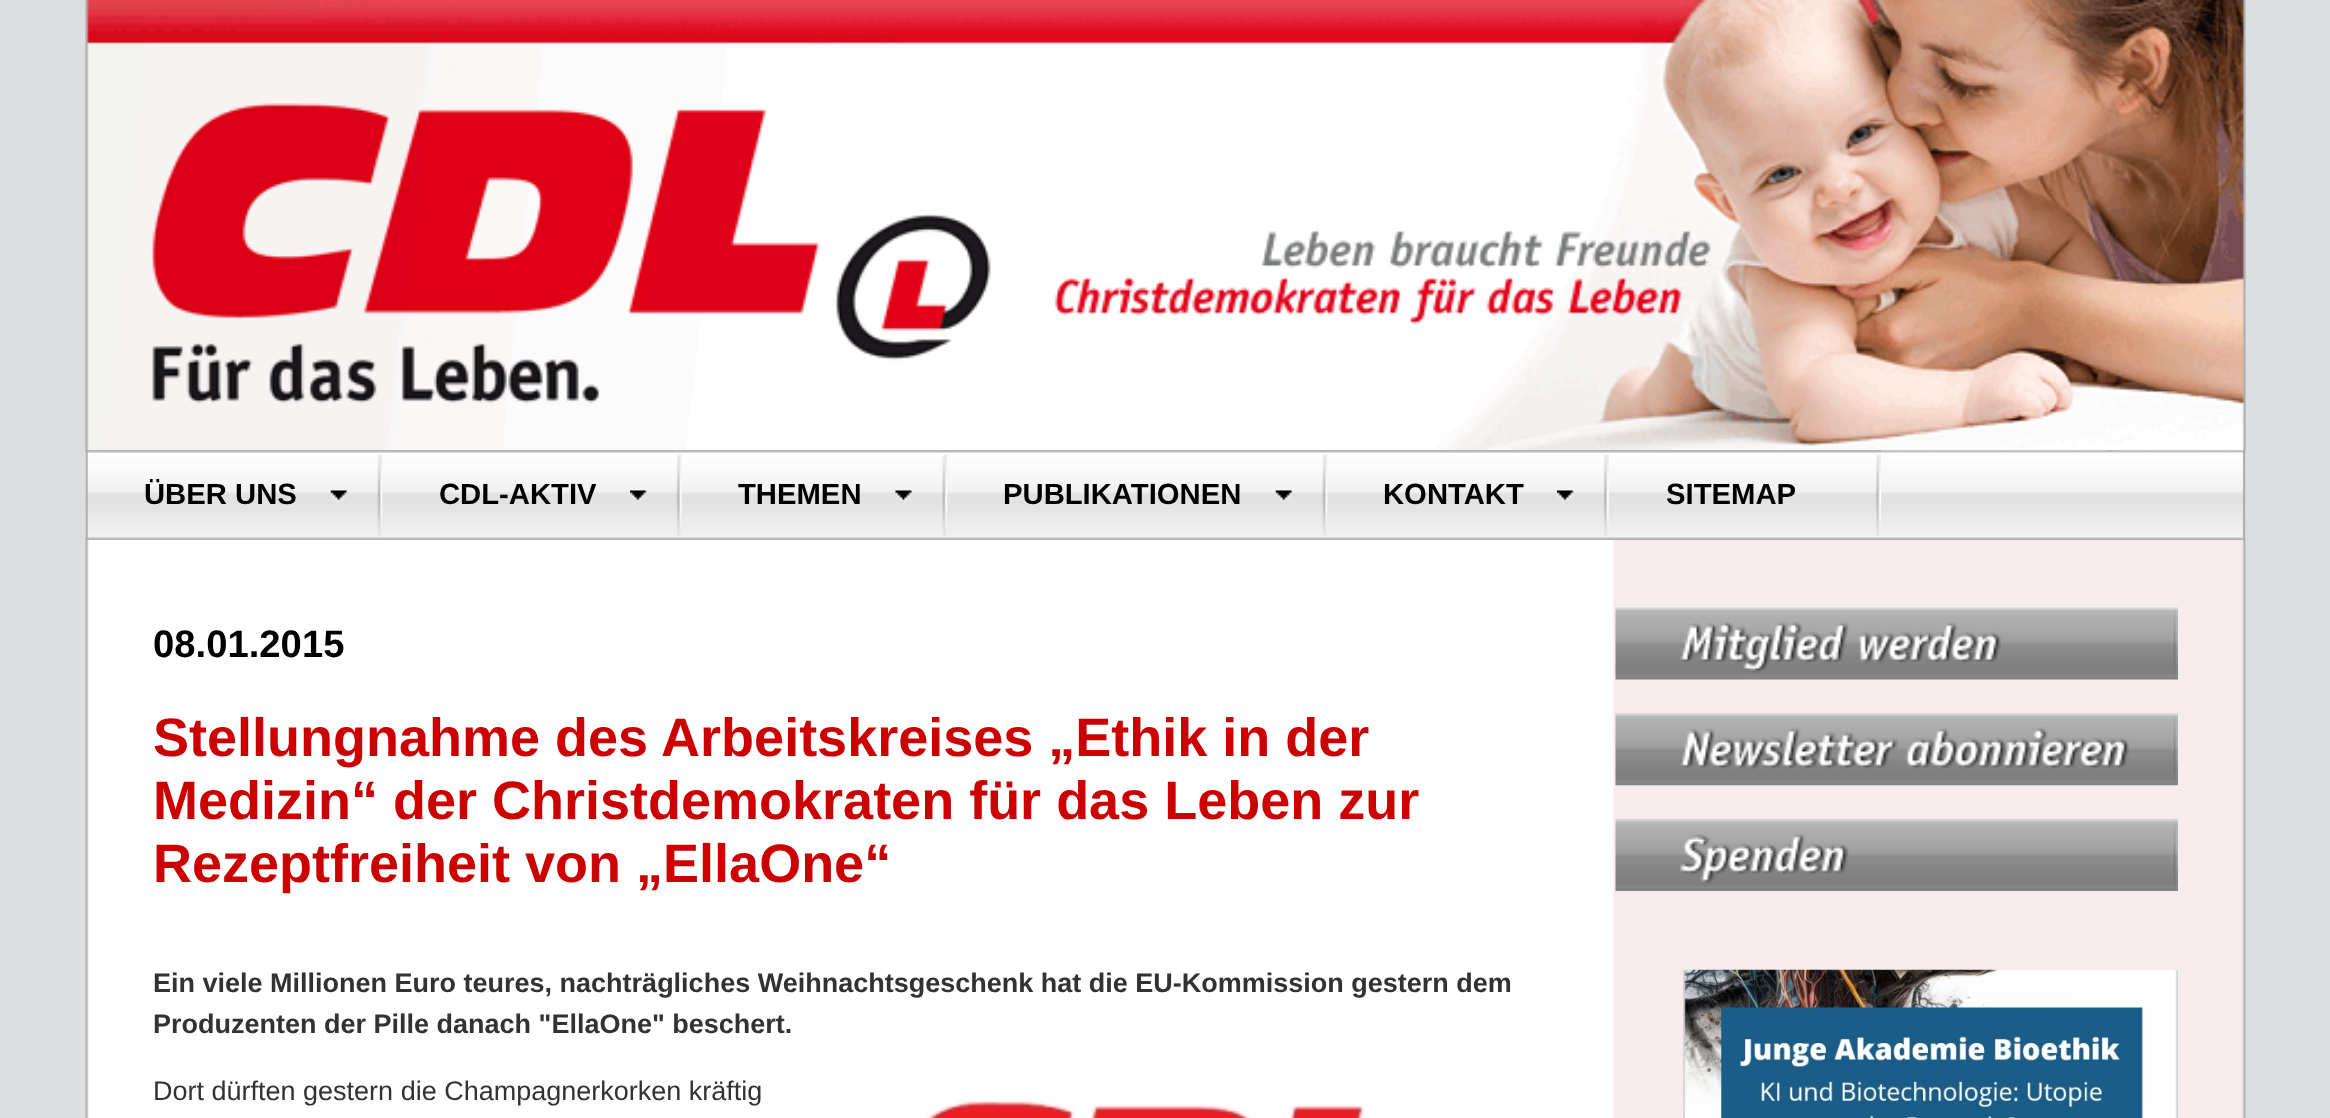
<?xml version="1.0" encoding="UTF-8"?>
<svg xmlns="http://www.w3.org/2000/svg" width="2330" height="1118">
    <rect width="100%" height="100%" fill="#DDDEDF"/>
    <image x="85" y="0" width="2161" height="1118" href="img_01.png"/>
    <image x="85" y="0" width="2161" height="450" href="img_02.png"/>
    <rect x="2245" y="450" width="1" height="90" fill="#CCCCCC"/>
    <image x="85" y="450" width="2161" height="90" href="img_03.png"/>
    <rect x="2243" y="450" width="2" height="90" fill="#AFAFAF"/>
    <rect x="86" y="450" width="2" height="90" fill="#AFAFAF"/>
    <image x="87" y="450" width="296" height="89" href="img_04.png"/>
    <text x="144" y="504" font-family="Liberation Sans" font-size="29.25" font-weight="700" fill="#000000">ÜBER UNS</text>
    <image x="330" y="490" width="18" height="12" href="img_05.png"/>
    <image x="382" y="450" width="300" height="86" href="img_06.png"/>
    <text x="439" y="504" font-family="Liberation Sans" font-size="29.25" font-weight="700" fill="#000000">CDL-AKTIV</text>
    <image x="630" y="490" width="17" height="12" href="img_07.png"/>
    <image x="681" y="450" width="267" height="86" href="img_08.png"/>
    <text x="738" y="504" font-family="Liberation Sans" font-size="29.25" font-weight="700" fill="#000000">THEMEN</text>
    <image x="895" y="490" width="17" height="12" href="img_09.png"/>
    <image x="947" y="450" width="381" height="86" href="img_10.png"/>
    <text x="1003" y="504" font-family="Liberation Sans" font-size="29.25" font-weight="700" fill="#000000">PUBLIKATIONEN</text>
    <image x="1275" y="490" width="18" height="12" href="img_11.png"/>
    <image x="1608" y="450" width="273" height="86" href="img_13.png"/>
    <image x="1327" y="450" width="282" height="86" href="img_12.png"/>
    <text x="1383" y="504" font-family="Liberation Sans" font-size="29.25" font-weight="700" fill="#000000">KONTAKT</text>
    <image x="1557" y="490" width="17" height="12" href="img_07.png"/>
    <text x="1666" y="504" font-family="Liberation Sans" font-size="29.25" font-weight="700" fill="#000000">SITEMAP</text>
    <text x="153" y="657" font-family="Liberation Sans" font-size="38.25" font-weight="700" fill="#000000">08.01.2015</text>
    <text font-family="Liberation Sans" font-size="54" font-weight="700" fill="#CC0000">
        <tspan x="153" y="756">Stellungnahme des Arbeitskreises „Ethik in der</tspan>
        <tspan x="153" y="819">Medizin“ der Christdemokraten für das Leben zur</tspan>
        <tspan x="153" y="882">Rezeptfreiheit von „EllaOne“</tspan>
    </text>
    <text font-family="Liberation Sans" font-size="27" font-weight="700" fill="#323232">
        <tspan x="153" y="992">Ein viele Millionen Euro teures, nachträgliches Weihnachtsgeschenk hat die EU-Kommission gestern dem</tspan>
        <tspan x="153" y="1033">Produzenten der Pille danach "EllaOne" beschert.</tspan>
    </text>
    <text x="153" y="1100" font-family="Liberation Sans" font-size="27" fill="#323232">Dort dürften gestern die Champagnerkorken kräftig</text>
    <image x="926" y="1100" width="439" height="18" href="img_14.png"/>
    <image x="1615" y="607" width="563" height="73" href="img_15.png"/>
    <image x="1615" y="713" width="563" height="73" href="img_16.png"/>
    <image x="1615" y="819" width="563" height="72" href="img_17.png"/>
    <image x="1683" y="969" width="495" height="149" href="img_18.png"/>
</svg>
